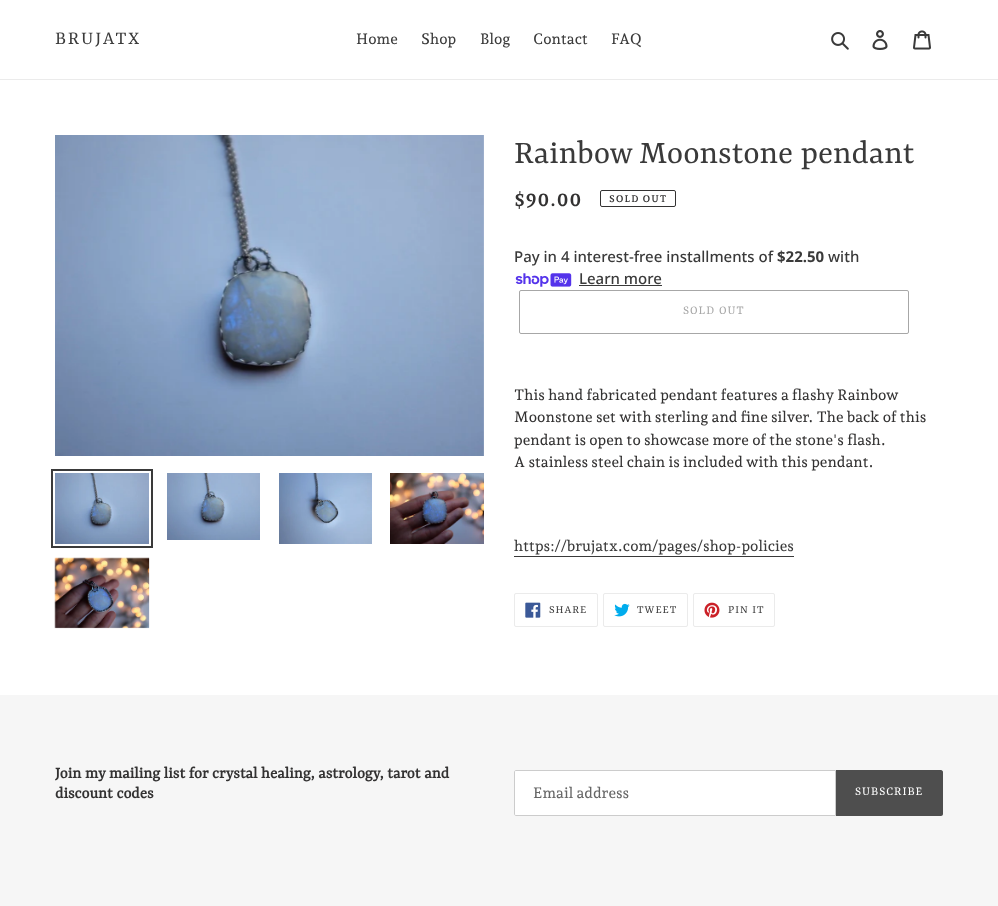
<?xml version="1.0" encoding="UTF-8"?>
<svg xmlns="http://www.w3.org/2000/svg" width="998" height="906">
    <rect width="100%" height="100%" fill="#FFFFFF"/>
    <rect x="0" y="79" width="998" height="1" fill="#EBEBEB"/>
    <text x="55" y="44" font-family="Rasa" font-size="20" letter-spacing="2" fill="#3A3A3A">BRUJATX</text>
    <text x="356" y="44" font-family="Andada Pro" font-size="15" font-weight="500" fill="#3A3A3A">Home</text>
    <text x="421" y="44" font-family="Andada Pro" font-size="15" font-weight="500" fill="#3A3A3A">Shop</text>
    <text x="480" y="44" font-family="Andada Pro" font-size="15" font-weight="500" fill="#3A3A3A">Blog</text>
    <text x="533" y="44" font-family="Andada Pro" font-size="15" font-weight="500" fill="#3A3A3A">Contact</text>
    <text x="611" y="44" font-family="Andada Pro" font-size="15" font-weight="500" fill="#3A3A3A">FAQ</text>
    <image x="831" y="32" width="18" height="18" href="img_01.png"/>
    <image x="872" y="30" width="16" height="20" href="img_02.png"/>
    <image x="913" y="30" width="18" height="20" href="img_03.png"/>
    <image x="55" y="135" width="429" height="321" href="img_04.png"/>
    <rect x="52" y="470" width="100" height="77" fill="none" stroke="#3A3A3A" stroke-width="2"/>
    <image x="55" y="473" width="94" height="71" href="img_05.png"/>
    <image x="167" y="473" width="93" height="67" href="img_06.png"/>
    <image x="279" y="473" width="93" height="71" href="img_07.png"/>
    <image x="390" y="473" width="94" height="71" href="img_08.png"/>
    <image x="54" y="557" width="96" height="72" href="img_09.png"/>
    <text x="514" y="163" font-family="Rasa" font-size="35" fill="#3A3A3A">Rainbow Moonstone pendant</text>
    <text x="514" y="206" font-family="Andada Pro" font-size="19" font-weight="700" fill="#333232">$90.00</text>
    <rect x="600.5" y="190.5" width="75" height="16" rx="1.5" fill="none" stroke="#333232"/>
    <text x="609" y="202" font-family="Andada Pro" font-size="9.5" font-weight="700" letter-spacing="1" fill="#333232">SOLD OUT</text>
    <text x="514" y="262" font-family="Noto Sans" font-size="15" font-weight="500" fill="#3A3A3A">Pay in 4 interest-free installments of</text>
    <text x="777" y="262" font-family="Noto Sans" font-size="15" font-weight="700" fill="#3A3A3A">$22.50</text>
    <text x="828" y="262" font-family="Noto Sans" font-size="15" font-weight="500" fill="#3A3A3A">with</text>
    <image x="515" y="273" width="57" height="14" href="img_10.png"/>
    <text x="579" y="284" font-family="Noto Sans" font-size="15" font-weight="500" fill="#3A3A3A">Learn more</text>
    <rect x="579" y="285" width="83" height="1" fill="#3A3A3A"/>
    <rect x="519.5" y="290.5" width="389" height="43" rx="1.5" fill="none" stroke="#A7A7A7"/>
    <text x="683" y="314" font-family="Rasa" font-size="13" letter-spacing="1" fill="#A7A7A7">SOLD OUT</text>
    <text font-family="Andada Pro" font-size="15" font-weight="500" fill="#333232">
        <tspan x="514" y="400">This hand fabricated pendant features a flashy Rainbow</tspan>
        <tspan x="514" y="422">Moonstone set with sterling and fine silver. The back of this</tspan>
        <tspan x="514" y="445">pendant is open to showcase more of the stone's flash.</tspan>
        <tspan x="514" y="467">A stainless steel chain is included with this pendant.</tspan>
    </text>
    <text x="514" y="551" font-family="Andada Pro" font-size="15" font-weight="500" fill="#3A3A3A">https://brujatx.com/pages/shop-policies</text>
    <rect x="514" y="556" width="280" height="1" fill="#3A3A3A"/>
    <rect x="514.5" y="593.5" width="83" height="33" rx="1.5" fill="none" stroke="#EBEBEB"/>
    <image x="525" y="602" width="16" height="16" href="img_11.png"/>
    <text x="549" y="613" font-family="Rasa" font-size="12" letter-spacing="1" fill="#3A3A3A">SHARE</text>
    <rect x="603.5" y="593.5" width="84" height="33" rx="1.5" fill="none" stroke="#EBEBEB"/>
    <image x="614" y="603" width="16" height="14" href="img_12.png"/>
    <text x="637" y="613" font-family="Rasa" font-size="12" letter-spacing="1" fill="#3A3A3A">TWEET</text>
    <rect x="693.5" y="593.5" width="81" height="33" rx="1.5" fill="none" stroke="#EBEBEB"/>
    <image x="704" y="602" width="16" height="16" href="img_13.png"/>
    <text x="728" y="613" font-family="Rasa" font-size="12" letter-spacing="1" fill="#3A3A3A">PIN IT</text>
    <rect x="0" y="695" width="998" height="211" fill="#F6F6F6"/>
    <text font-family="Rasa" font-size="17" font-weight="700" fill="#333232">
        <tspan x="55" y="778">Join my mailing list for crystal healing, astrology, tarot and</tspan>
        <tspan x="55" y="798">discount codes</tspan>
    </text>
    <path d="M 516 770.5 H 835.5 V 815.5 H 516 C 515 815.5 514.5 815 514.5 814 V 772 C 514.5 771 515 770.5 516 770.5 Z" fill="#FFFFFF" stroke="#CCCCCC"/>
    <text x="533" y="798" font-family="Andada Pro" font-size="15" font-weight="500" fill="#666666">Email address</text>
    <path d="M 836 770 H 941 C 942 770 943 771 943 772 V 814 C 943 815 942 816 941 816 H 836 Z" fill="#4E4E4E"/>
    <text x="855" y="795" font-family="Rasa" font-size="13" letter-spacing="1" fill="#FFFFFF">SUBSCRIBE</text>
</svg>
